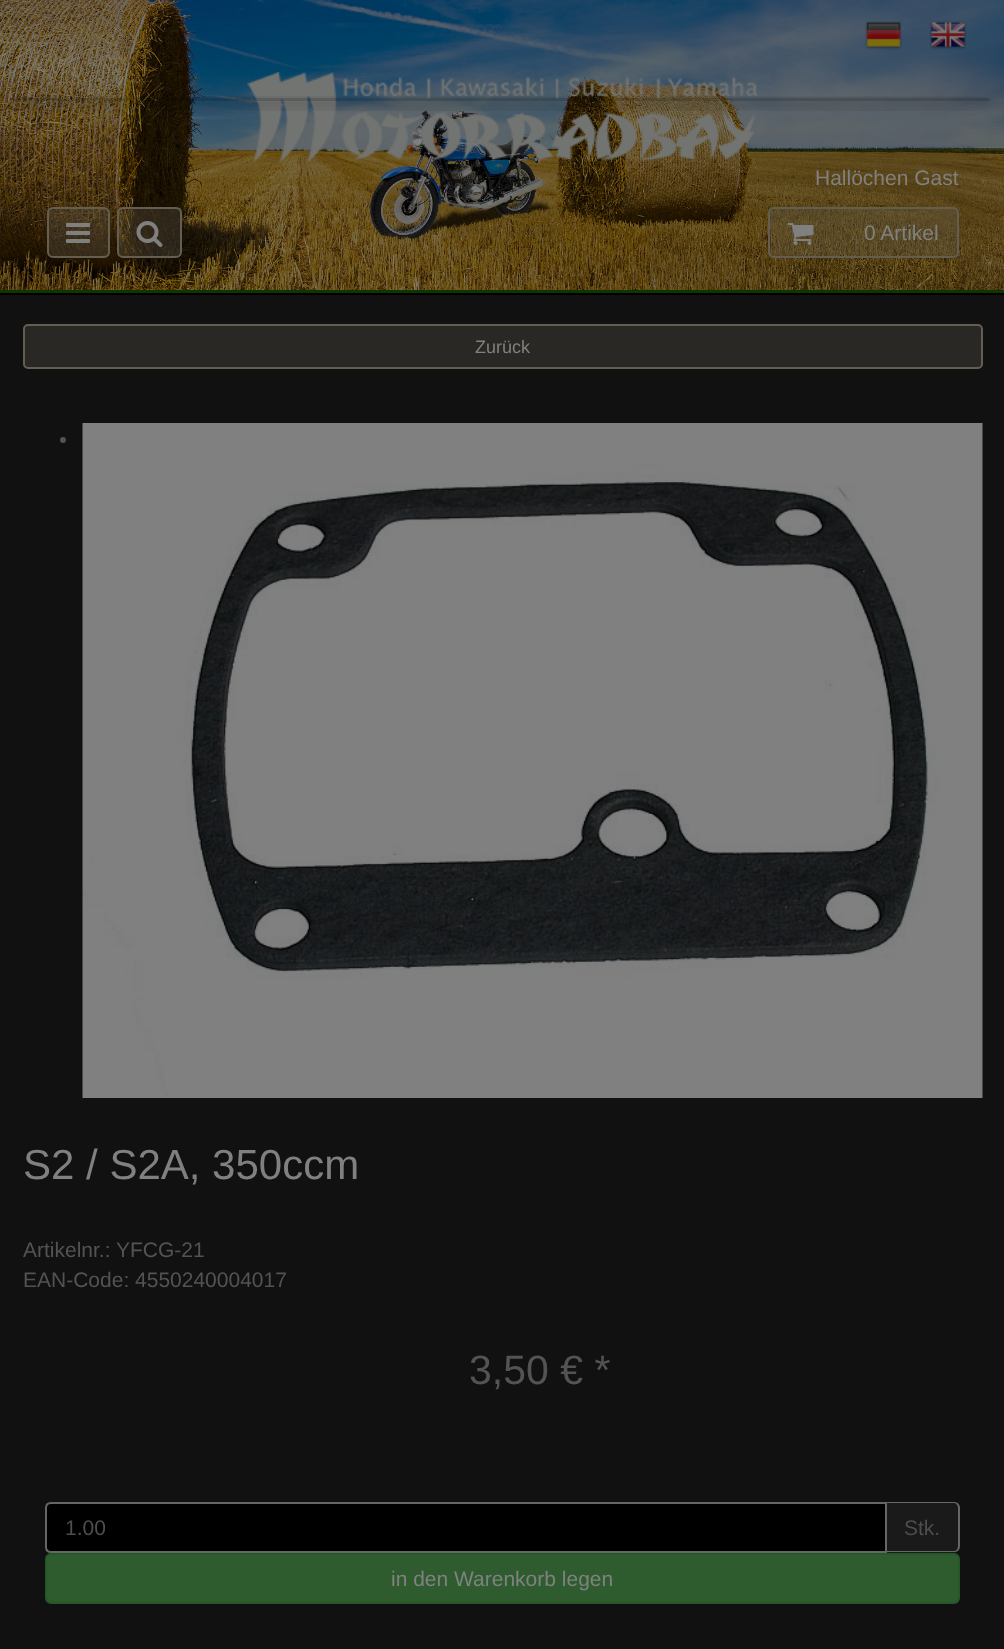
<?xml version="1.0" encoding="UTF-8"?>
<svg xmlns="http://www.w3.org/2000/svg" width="1004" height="1649">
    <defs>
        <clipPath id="clip1"><path d="M 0 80 H 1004 V 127 H 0 Z M 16.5 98 H 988.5 C 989.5 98 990 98.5 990 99.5 C 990 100.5 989.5 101 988.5 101 H 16.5 C 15.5 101 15 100.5 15 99.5 C 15 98.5 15.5 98 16.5 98 Z" clip-rule="evenodd"/></clipPath>
        <filter id="blur1" x="-50%" y="-200%" width="200%" height="500%"><feGaussianBlur stdDeviation="7"/></filter>
    </defs>
    <rect width="100%" height="100%" fill="#111111"/>
    <image x="0" y="0" width="1004" height="290" href="img_01.png"/>
    <image x="247" y="72" width="511" height="90" href="img_04.png"/>
    <g clip-path="url(#clip1)">
        <rect x="15" y="102" width="975" height="3" rx="1.5" fill="#000000" fill-opacity="0.5" filter="url(#blur1)"/>
    </g>
    <rect x="15" y="98" width="975" height="3" rx="1.5" fill="#000000" fill-opacity="0.2"/>
    <image x="865" y="21" width="37" height="29" href="img_02.png"/>
    <image x="930" y="21" width="36" height="29" href="img_03.png"/>
    <text x="815" y="185" font-family="Liberation Sans" font-size="21" fill="#808080">Hallöchen Gast</text>
    <rect x="48" y="208" width="61" height="49" rx="5" fill="#635E50" fill-opacity="0.3" stroke="#635E50" stroke-width="2"/>
    <image x="66" y="223" width="24" height="20" href="img_05.png"/>
    <rect x="118" y="208" width="63" height="49" rx="5" fill="#635E50" fill-opacity="0.3" stroke="#635E50" stroke-width="2"/>
    <image x="136" y="221" width="27" height="26" href="img_06.png"/>
    <rect x="769" y="208" width="189" height="49" rx="5" fill="#635E50" fill-opacity="0.3" stroke="#635E50" stroke-width="2"/>
    <image x="787" y="223" width="27" height="22" href="img_07.png"/>
    <text x="864" y="240" font-family="Liberation Sans" font-size="21" fill="#808080">0 Artikel</text>
    <rect x="0" y="290" width="1004" height="3" fill="#0D3600"/>
    <rect x="0" y="293" width="1004" height="2" fill="#000000"/>
    <rect x="24" y="325" width="958" height="43" rx="4" fill="#292824" stroke="#635E50" stroke-width="2"/>
    <text x="475" y="353" font-family="Liberation Sans" font-size="18" fill="#808080">Zurück</text>
    <circle cx="63" cy="440" r="3" fill="#535353"/>
    <image x="82" y="423" width="901" height="675" href="img_08.png"/>
    <text x="23" y="1179" font-family="Liberation Sans" font-size="42" fill="#808080">S2 / S2A, 350ccm</text>
    <text font-family="Liberation Sans" font-size="21" fill="#535353">
        <tspan x="23" y="1257">Artikelnr.: YFCG-21</tspan>
        <tspan x="23" y="1287">EAN-Code: 4550240004017</tspan>
    </text>
    <text x="469" y="1384" font-family="Liberation Sans" font-size="41" fill="#535353">3,50 € *</text>
    <path d="M 887 1502 H 954 C 957.5 1502 960 1504.5 960 1508 V 1547 C 960 1550.5 957.5 1553 954 1553 H 887 Z" fill="#1A1A1A"/>
    <path d="M 886 1502 H 954 C 957 1502 960 1504 960 1508 V 1546 C 960 1550 957 1552 954 1552 H 886 Z M 886 1503 H 954 C 956 1503 958 1505 958 1508 V 1546 C 958 1549 956 1551 954 1551 H 886 Z" fill="#666666" fill-rule="evenodd"/>
    <path d="M 51 1503 H 886 V 1552 H 51 C 48 1552 46 1550 46 1547 V 1508 C 46 1505 48 1503 51 1503 Z" fill="#000000" stroke="#666666" stroke-width="2"/>
    <text x="65" y="1535" font-family="Liberation Sans" font-size="21" fill="#4D4D4D">1.00</text>
    <text x="904" y="1535" font-family="Liberation Sans" font-size="21" fill="#4D4D4D">Stk.</text>
    <rect x="46" y="1554" width="913" height="49" rx="5" fill="#2E5C2E" stroke="#265726" stroke-width="2"/>
    <text x="391" y="1586" font-family="Liberation Sans" font-size="21" fill="#808080">in den Warenkorb legen</text>
</svg>
